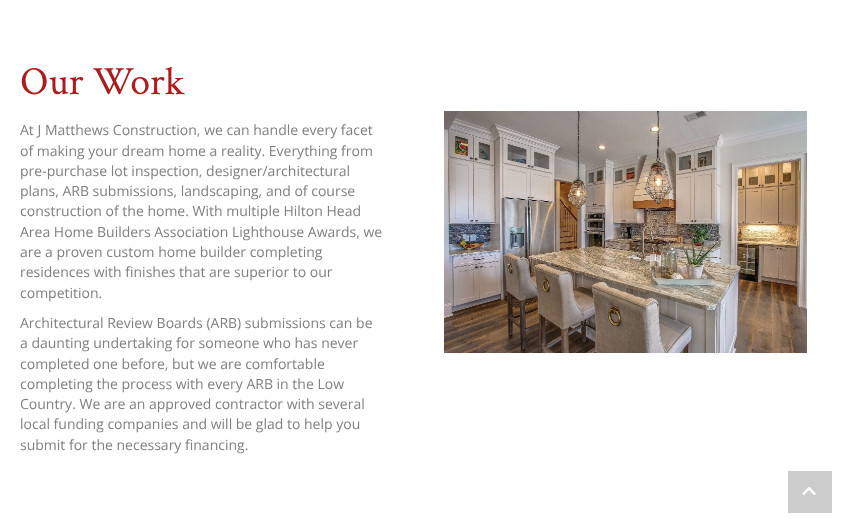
<?xml version="1.0" encoding="UTF-8"?>
<svg xmlns="http://www.w3.org/2000/svg" width="847" height="528">
    <rect width="100%" height="100%" fill="#FFFFFF"/>
    <text x="20" y="94" font-family="Crimson Text" font-size="40" fill="#AD1C1C">Our Work</text>
    <text font-family="Open Sans" font-size="14" fill="#808080">
        <tspan x="20" y="135">At J Matthews Construction, we can handle every facet</tspan>
        <tspan x="20" y="156">of making your dream home a reality. Everything from</tspan>
        <tspan x="20" y="176">pre-purchase lot inspection, designer/architectural</tspan>
        <tspan x="20" y="196">plans, ARB submissions, landscaping, and of course</tspan>
        <tspan x="20" y="216">construction of the home. With multiple Hilton Head</tspan>
        <tspan x="20" y="237">Area Home Builders Association Lighthouse Awards, we</tspan>
        <tspan x="20" y="257">are a proven custom home builder completing</tspan>
        <tspan x="20" y="277">residences with finishes that are superior to our</tspan>
        <tspan x="20" y="298">competition.</tspan>
    </text>
    <text font-family="Open Sans" font-size="14" fill="#808080">
        <tspan x="20" y="328">Architectural Review Boards (ARB) submissions can be</tspan>
        <tspan x="20" y="348">a daunting undertaking for someone who has never</tspan>
        <tspan x="20" y="369">completed one before, but we are comfortable</tspan>
        <tspan x="20" y="389">completing the process with every ARB in the Low</tspan>
        <tspan x="20" y="409">Country. We are an approved contractor with several</tspan>
        <tspan x="20" y="429">local funding companies and will be glad to help you</tspan>
        <tspan x="20" y="450">submit for the necessary financing.</tspan>
    </text>
    <image x="444" y="111" width="363" height="242" href="img_01.png"/>
    <rect x="788" y="471" width="44" height="42" fill="#CCCCCC"/>
    <image x="802" y="487" width="14" height="8" href="img_02.png"/>
</svg>
